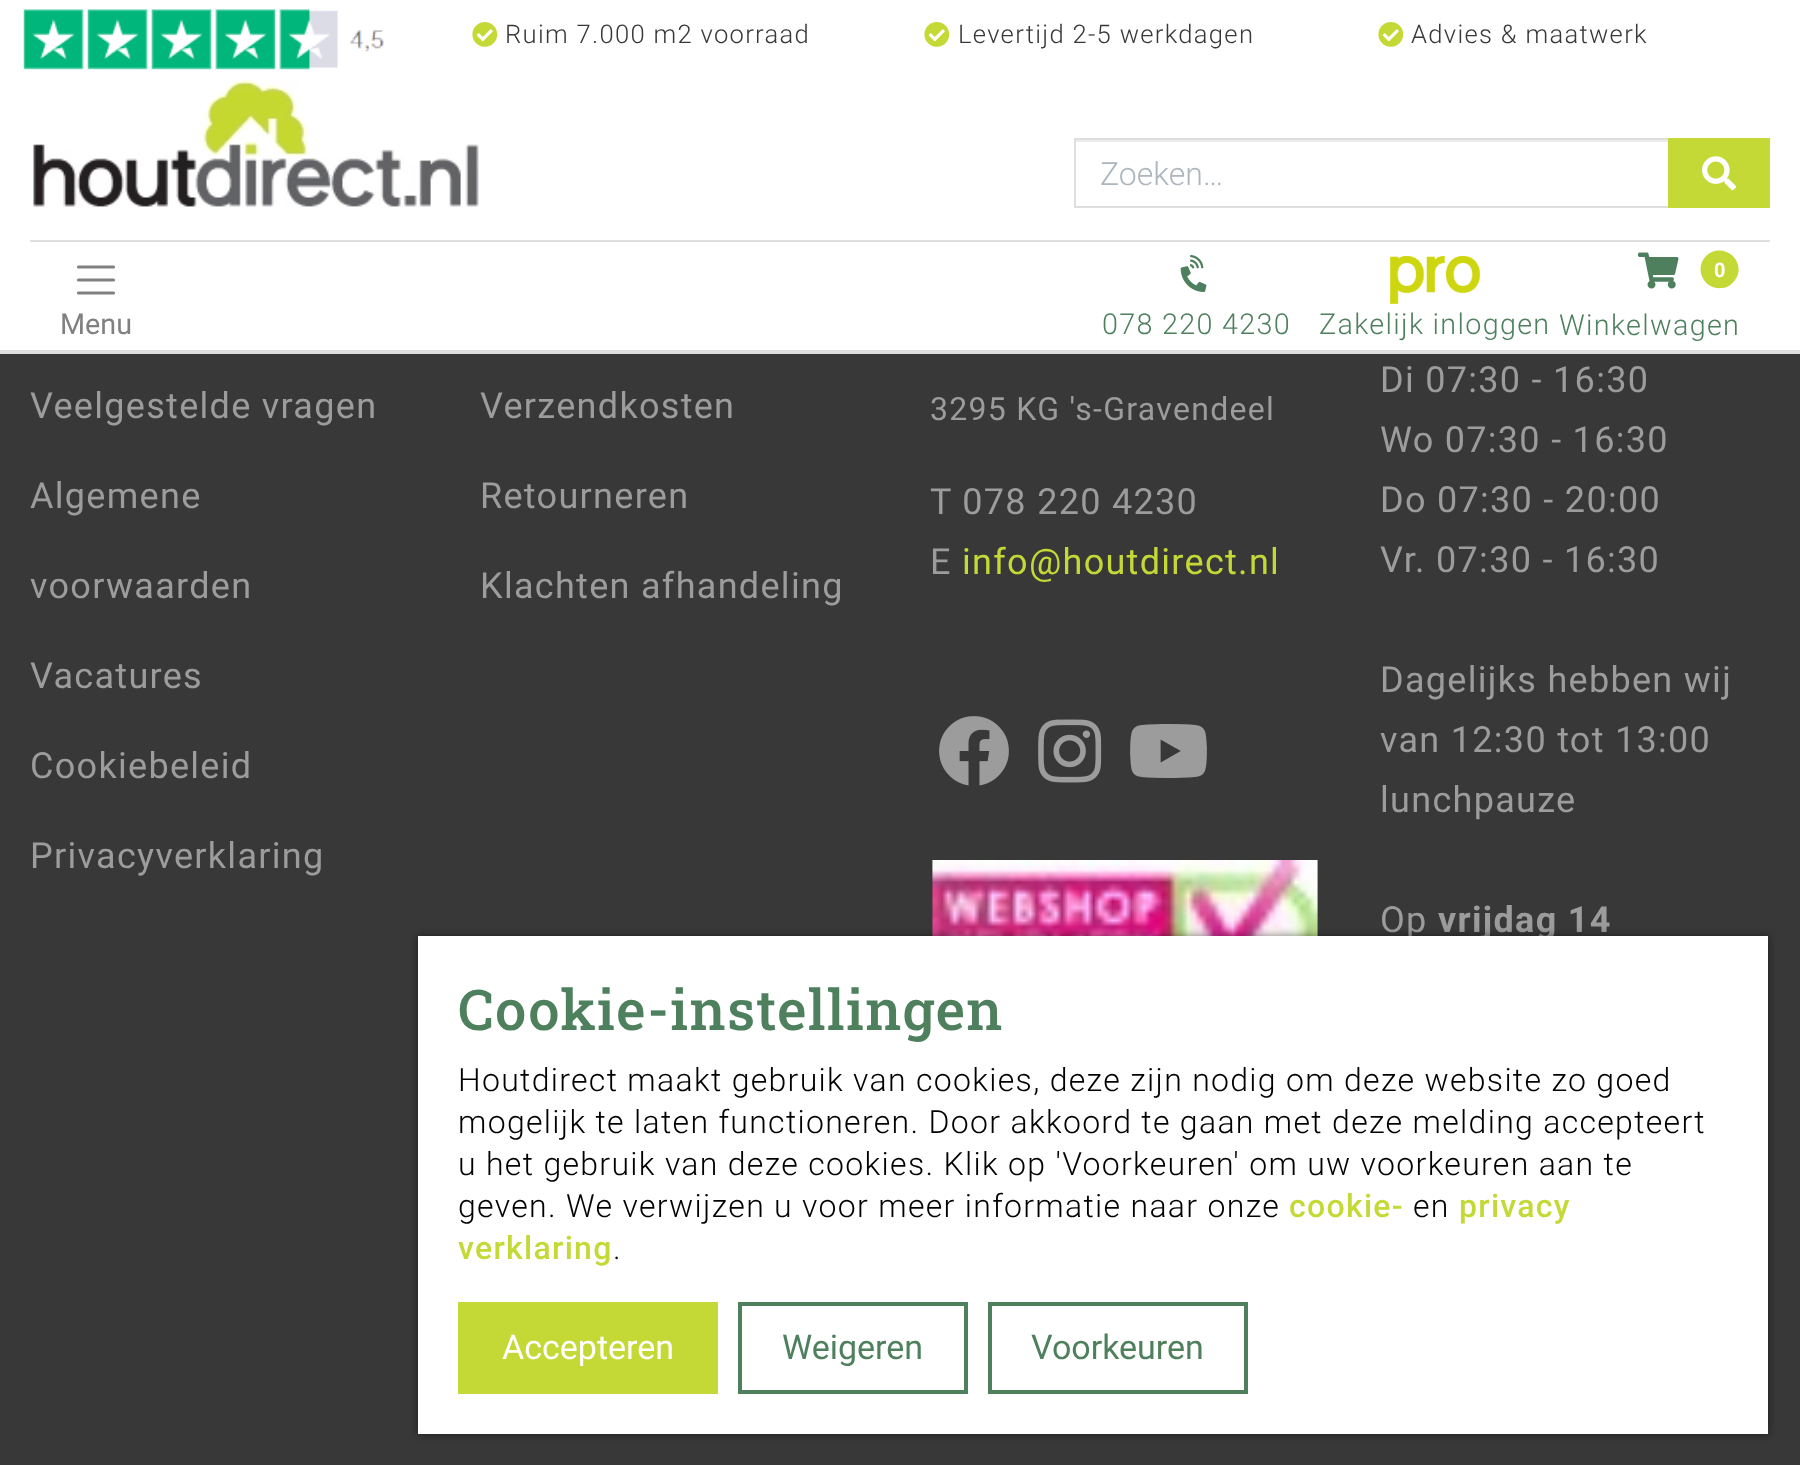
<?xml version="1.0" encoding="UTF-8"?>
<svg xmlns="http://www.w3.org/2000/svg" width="1800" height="1465">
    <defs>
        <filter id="blur1" x="-50%" y="-200%" width="200%" height="500%"><feGaussianBlur stdDeviation="5"/></filter>
    </defs>
    <rect width="100%" height="100%" fill="#383838"/>
    <rect x="0" y="0" width="1800" height="350" fill="#FFFFFF"/>
    <rect x="0" y="350" width="1800" height="4" fill="#DEDEDE"/>
    <image x="23" y="9" width="361" height="61" href="img_01.png"/>
    <image x="472" y="22" width="26" height="25" href="img_02.png"/>
    <text x="505" y="43" font-family="Roboto" font-size="25.6" font-weight="300" letter-spacing="1.3" fill="#383838">Ruim 7.000 m2 voorraad</text>
    <image x="924" y="22" width="26" height="25" href="img_02.png"/>
    <text x="958" y="43" font-family="Roboto" font-size="25.6" font-weight="300" letter-spacing="1.3" fill="#383838">Levertijd 2-5 werkdagen</text>
    <image x="1378" y="22" width="26" height="25" href="img_02.png"/>
    <text x="1411" y="43" font-family="Roboto" font-size="25.6" font-weight="300" letter-spacing="1.3" fill="#383838">Advies &amp; maatwerk</text>
    <image x="33" y="80" width="446" height="127" href="img_03.png"/>
    <rect x="1076" y="140" width="592" height="2" fill="#ECECEC"/>
    <rect x="1075" y="139" width="594" height="68" fill="none" stroke="#DEDEDE" stroke-width="2"/>
    <text x="1100" y="185" font-family="Roboto" font-size="32" font-weight="300" fill="#ADB5BD">Zoeken…</text>
    <rect x="1668" y="138" width="102" height="70" fill="#C4D935"/>
    <image x="1702" y="156" width="34" height="35" href="img_04.png"/>
    <rect x="30" y="240" width="1740" height="2" fill="#DEDEDE"/>
    <path d="M 78.5 267 H 113.5 M 78.5 280 H 113.5 M 78.5 293 H 113.5" fill="none" stroke="#808080" stroke-width="3.2" stroke-linecap="round"/>
    <text x="60" y="334" font-family="Roboto" font-size="28.75" fill="#808080">Menu</text>
    <image x="1180" y="255" width="27" height="37" href="img_05.png"/>
    <text x="1102" y="334" font-family="Roboto" font-size="28.75" font-weight="300" letter-spacing="1.3" fill="#4F805E">078 220 4230</text>
    <image x="1389" y="256" width="91" height="48" href="img_06.png"/>
    <text x="1319" y="334" font-family="Roboto" font-size="28.75" font-weight="300" letter-spacing="1.3" fill="#4F805E">Zakelijk inloggen</text>
    <image x="1638" y="252" width="41" height="37" href="img_07.png"/>
    <path d="M 1706 256 C 1718.5 243.5 1740 253.5 1738.5 271.5 C 1738 275.5 1736 279.5 1733 282.5 C 1730 286 1726 288 1721.5 288 C 1704 290 1693.5 268.5 1706 256 Z" fill="#C4D935"/>
    <text x="1714" y="277" font-family="Roboto" font-size="20" font-weight="700" fill="#FFFFFF">0</text>
    <text x="1559" y="335" font-family="Roboto" font-size="28.75" font-weight="300" letter-spacing="1.3" fill="#4F805E">Winkelwagen</text>
    <text x="30" y="418" font-family="Roboto" font-size="36" letter-spacing="1.3" fill="#9C9C9C">Veelgestelde vragen</text>
    <text x="30" y="508" font-family="Roboto" font-size="36" letter-spacing="1.3" fill="#9C9C9C">Algemene</text>
    <text x="30" y="598" font-family="Roboto" font-size="36" letter-spacing="1.3" fill="#9C9C9C">voorwaarden</text>
    <text x="30" y="688" font-family="Roboto" font-size="36" letter-spacing="1.3" fill="#9C9C9C">Vacatures</text>
    <text x="30" y="778" font-family="Roboto" font-size="36" letter-spacing="1.3" fill="#9C9C9C">Cookiebeleid</text>
    <text x="30" y="868" font-family="Roboto" font-size="36" letter-spacing="1.3" fill="#9C9C9C">Privacyverklaring</text>
    <text x="480" y="418" font-family="Roboto" font-size="36" letter-spacing="1.3" fill="#9C9C9C">Verzendkosten</text>
    <text x="480" y="508" font-family="Roboto" font-size="36" letter-spacing="1.3" fill="#9C9C9C">Retourneren</text>
    <text x="480" y="598" font-family="Roboto" font-size="36" letter-spacing="1.3" fill="#9C9C9C">Klachten afhandeling</text>
    <text x="930" y="420" font-family="Roboto" font-size="32" letter-spacing="1.3" fill="#9C9C9C">3295 KG 's-Gravendeel</text>
    <text font-family="Roboto" font-size="36" letter-spacing="1.3" fill="#9C9C9C">
        <tspan x="930" y="514">T 078 220 4230</tspan>
        <tspan x="930" y="574">E</tspan>
    </text>
    <text x="962" y="574" font-family="Roboto" font-size="36" letter-spacing="1.3" fill="#C4D935">info@houtdirect.nl</text>
    <image x="939" y="716" width="70" height="70" href="img_08.png"/>
    <image x="1038" y="719" width="64" height="64" href="img_09.png"/>
    <image x="1130" y="724" width="77" height="54" href="img_10.png"/>
    <image x="932" y="860" width="386" height="76" href="img_11.png"/>
    <text font-family="Roboto" font-size="36" letter-spacing="1.3" fill="#9C9C9C">
        <tspan x="1380" y="392">Di 07:30 - 16:30</tspan>
        <tspan x="1380" y="452">Wo 07:30 - 16:30</tspan>
        <tspan x="1380" y="512">Do 07:30 - 20:00</tspan>
        <tspan x="1380" y="572">Vr. 07:30 - 16:30</tspan>
    </text>
    <text font-family="Roboto" font-size="36" letter-spacing="1.3" fill="#9C9C9C">
        <tspan x="1380" y="692">Dagelijks hebben wij</tspan>
        <tspan x="1380" y="752">van 12:30 tot 13:00</tspan>
        <tspan x="1380" y="812">lunchpauze</tspan>
    </text>
    <text x="1380" y="932" font-family="Roboto" font-size="36" letter-spacing="1.3" fill="#9C9C9C">Op</text>
    <text x="1438" y="932" font-family="Roboto" font-size="36" font-weight="700" letter-spacing="1.3" fill="#9C9C9C">vrijdag 14</text>
    <rect x="418" y="936" width="1350" height="498" fill="#000000" fill-opacity="0.5" filter="url(#blur1)"/>
    <rect x="418" y="936" width="1350" height="498" fill="#FFFFFF"/>
    <text x="458" y="1030" font-family="Roboto Slab" font-size="56" font-weight="500" letter-spacing="1.3" fill="#4F805E">Cookie-instellingen</text>
    <text font-family="Roboto" font-size="32" font-weight="300" letter-spacing="1.3" fill="#000000">
        <tspan x="458" y="1091">Houtdirect maakt gebruik van cookies, deze zijn nodig om deze website zo goed</tspan>
        <tspan x="458" y="1133">mogelijk te laten functioneren. Door akkoord te gaan met deze melding accepteert</tspan>
        <tspan x="458" y="1175">u het gebruik van deze cookies. Klik op 'Voorkeuren' om uw voorkeuren aan te</tspan>
        <tspan x="458" y="1217">geven. We verwijzen u voor meer informatie naar onze</tspan>
    </text>
    <text x="1289" y="1217" font-family="Roboto" font-size="32" font-weight="500" letter-spacing="1.3" fill="#C4D935">cookie-</text>
    <text x="1413" y="1217" font-family="Roboto" font-size="32" font-weight="300" letter-spacing="1.3" fill="#000000">en</text>
    <text x="1459" y="1217" font-family="Roboto" font-size="32" font-weight="500" letter-spacing="1.3" fill="#C4D935">privacy</text>
    <text x="458" y="1259" font-family="Roboto" font-size="32" font-weight="500" letter-spacing="1.3" fill="#C4D935">verklaring</text>
    <text x="613" y="1259" font-family="Roboto" font-size="32" font-weight="300" letter-spacing="1.3" fill="#000000">.</text>
    <rect x="458" y="1302" width="260" height="92" fill="#C4D935"/>
    <text x="502" y="1359" font-family="Roboto" font-size="34" fill="#FFFFFF">Accepteren</text>
    <rect x="740" y="1304" width="226" height="88" fill="none" stroke="#4F805E" stroke-width="4"/>
    <text x="782" y="1359" font-family="Roboto" font-size="34" fill="#4F805E">Weigeren</text>
    <rect x="990" y="1304" width="256" height="88" fill="none" stroke="#4F805E" stroke-width="4"/>
    <text x="1031" y="1359" font-family="Roboto" font-size="34" fill="#4F805E">Voorkeuren</text>
</svg>
